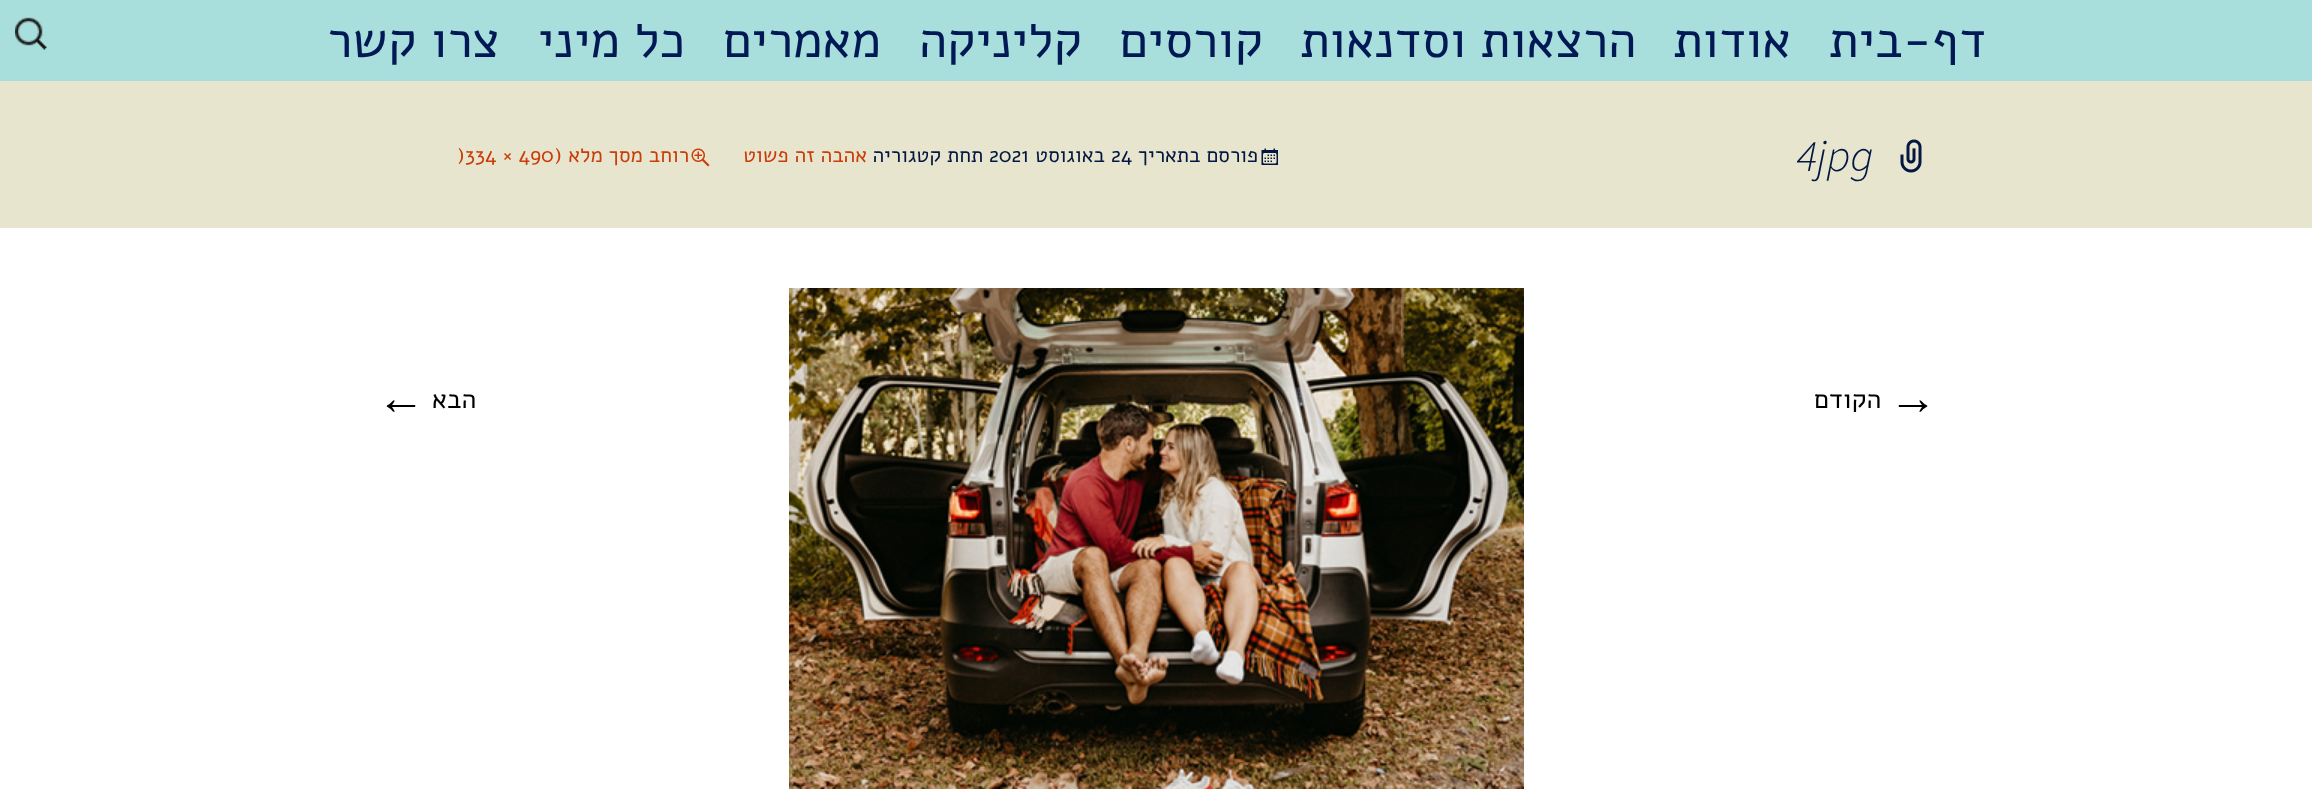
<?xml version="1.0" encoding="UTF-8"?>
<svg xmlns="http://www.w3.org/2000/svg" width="2312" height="802">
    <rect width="100%" height="100%" fill="#A8DEDB"/>
    <text x="1986" y="57" font-family="Alef" font-size="51" direction="rtl" fill="#001955">דף-בית</text>
    <text x="1791" y="57" font-family="Alef" font-size="51" direction="rtl" fill="#001955">אודות</text>
    <text x="1636" y="57" font-family="Alef" font-size="51" direction="rtl" fill="#001955">הרצאות וסדנאות</text>
    <text x="1263" y="57" font-family="Alef" font-size="51" direction="rtl" fill="#001955">קורסים</text>
    <text x="1082" y="57" font-family="Alef" font-size="51" direction="rtl" fill="#001955">קליניקה</text>
    <text x="881" y="57" font-family="Alef" font-size="51" direction="rtl" fill="#001955">מאמרים</text>
    <text x="685" y="57" font-family="Alef" font-size="51" direction="rtl" fill="#001955">כל מיני</text>
    <text x="500" y="57" font-family="Alef" font-size="51" direction="rtl" fill="#001955">צרו קשר</text>
    <image x="15" y="17" width="32" height="33" href="img_01.png"/>
    <rect x="0" y="81" width="2312" height="147" fill="#E8E5CE"/>
    <image x="1900" y="139" width="22" height="34" href="img_02.png"/>
    <text x="1796" y="171" font-family="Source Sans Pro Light" font-size="45" font-weight="300" font-style="italic" fill="#031742">4jpg</text>
    <image x="1261" y="148" width="17" height="17" href="img_03.png"/>
    <text x="1258" y="162" font-family="Alef" font-size="21" direction="rtl" fill="#031742">פורסם בתאריך</text>
    <text x="1111" y="162" font-family="Alef" font-size="21" fill="#031742">24</text>
    <text x="1105" y="162" font-family="Alef" font-size="21" direction="rtl" fill="#031742">באוגוסט</text>
    <text x="989" y="162" font-family="Alef" font-size="21" fill="#031742">2021</text>
    <text x="983" y="162" font-family="Alef" font-size="21" direction="rtl" fill="#031742">תחת קטגוריה</text>
    <text x="867" y="162" font-family="Alef" font-size="21" direction="rtl" fill="#CA3C08">אהבה זה פשוט</text>
    <image x="691" y="148" width="19" height="19" href="img_04.png"/>
    <text x="689" y="162" font-family="Alef" font-size="21" direction="rtl" fill="#CA3C08">רוחב מסך מלא (</text>
    <text x="457" y="162" font-family="Alef" font-size="21" fill="#CA3C08">)334 × 490</text>
    <rect x="0" y="228" width="2312" height="574" fill="#FFFFFF"/>
    <image x="789" y="288" width="735" height="501" href="img_05.png"/>
    <text x="1889" y="414" font-family="Liberation Sans" font-size="48" fill="#000000">→</text>
    <text x="1881" y="408" font-family="Alef" font-size="26.5" direction="rtl" fill="#000000">הקודם</text>
    <text x="476" y="408" font-family="Alef" font-size="26.5" direction="rtl" fill="#000000">הבא</text>
    <text x="377" y="414" font-family="Liberation Sans" font-size="48" fill="#000000">←</text>
</svg>
